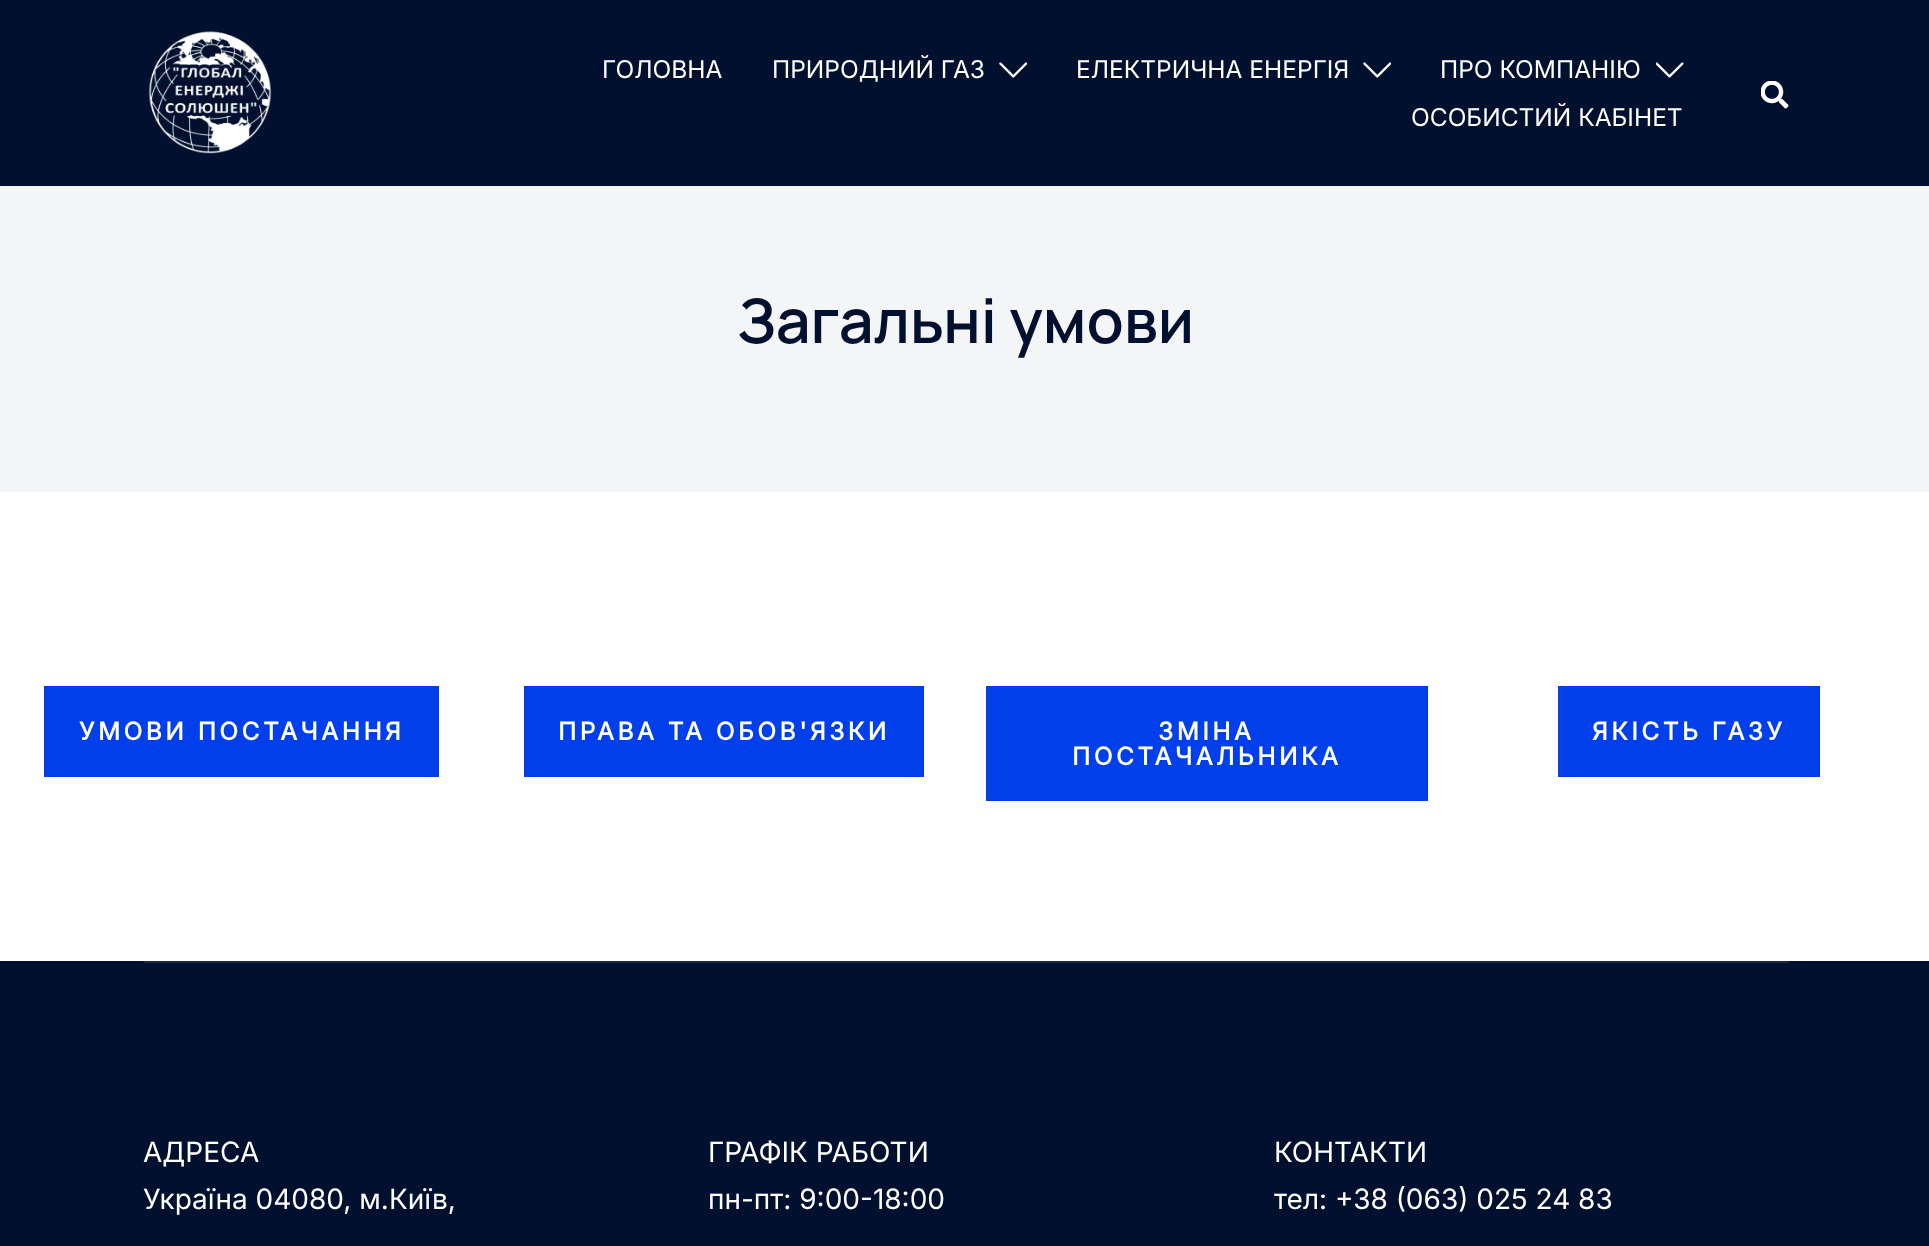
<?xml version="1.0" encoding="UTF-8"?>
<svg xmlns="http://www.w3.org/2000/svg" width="1929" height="1246">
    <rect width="100%" height="100%" fill="#FFFFFF"/>
    <rect x="0" y="0" width="1929" height="186" fill="#00102E"/>
    <image x="148" y="31" width="124" height="123" href="img_01.png"/>
    <text x="602" y="78" font-family="Inter" font-size="24.5" fill="#FFFFFF">ГОЛОВНА</text>
    <text x="772" y="78" font-family="Inter" font-size="24.5" fill="#FFFFFF">ПРИРОДНИЙ ГАЗ</text>
    <image x="999" y="62" width="28" height="16" href="img_02.png"/>
    <text x="1076" y="78" font-family="Inter" font-size="24.5" fill="#FFFFFF">ЕЛЕКТРИЧНА ЕНЕРГІЯ</text>
    <image x="1363" y="62" width="28" height="16" href="img_02.png"/>
    <text x="1440" y="78" font-family="Inter" font-size="24.5" fill="#FFFFFF">ПРО КОМПАНІЮ</text>
    <image x="1656" y="62" width="28" height="16" href="img_03.png"/>
    <text x="1411" y="126" font-family="Inter" font-size="24.5" fill="#FFFFFF">ОСОБИСТИЙ КАБІНЕТ</text>
    <image x="1761" y="81" width="28" height="28" href="img_04.png"/>
    <rect x="0" y="186" width="1929" height="306" fill="#F4F5F7"/>
    <text x="737" y="343" font-family="Manrope" font-size="61.25" font-weight="200" fill="#00102E">Загальні умови</text>
    <rect x="44" y="686" width="395" height="91" fill="#003FE9"/>
    <text x="79" y="740" font-family="Inter" font-size="24.5" font-weight="700" letter-spacing="3.5" fill="#FFFFFF">УМОВИ ПОСТАЧАННЯ</text>
    <rect x="524" y="686" width="400" height="91" fill="#003FE9"/>
    <text x="558" y="740" font-family="Inter" font-size="24.5" font-weight="700" letter-spacing="3.5" fill="#FFFFFF">ПРАВА ТА ОБОВ'ЯЗКИ</text>
    <rect x="986" y="686" width="442" height="115" fill="#003FE9"/>
    <text x="1158" y="740" font-family="Inter" font-size="24.5" font-weight="700" letter-spacing="3.5" fill="#FFFFFF">ЗМІНА</text>
    <text x="1072" y="765" font-family="Inter" font-size="24.5" font-weight="700" letter-spacing="3.5" fill="#FFFFFF">ПОСТАЧАЛЬНИКА</text>
    <rect x="1558" y="686" width="262" height="91" fill="#003FE9"/>
    <text x="1592" y="740" font-family="Inter" font-size="24.5" font-weight="700" letter-spacing="3.5" fill="#FFFFFF">ЯКІСТЬ ГАЗУ</text>
    <rect x="0" y="961" width="1929" height="285" fill="#00102E"/>
    <rect x="144" y="961" width="1645" height="2" fill="#1A2843"/>
    <text font-family="Inter" font-size="28" fill="#FFFFFF">
        <tspan x="143" y="1162">АДРЕСА</tspan>
        <tspan x="143" y="1209">Україна 04080, м.Київ,</tspan>
    </text>
    <text font-family="Inter" font-size="28" fill="#FFFFFF">
        <tspan x="708" y="1162">ГРАФІК РАБОТИ</tspan>
        <tspan x="708" y="1209">пн-пт: 9:00-18:00</tspan>
    </text>
    <text font-family="Inter" font-size="28" fill="#FFFFFF">
        <tspan x="1274" y="1162">КОНТАКТИ</tspan>
        <tspan x="1274" y="1209">тел: +38 (063) 025 24 83</tspan>
    </text>
</svg>
